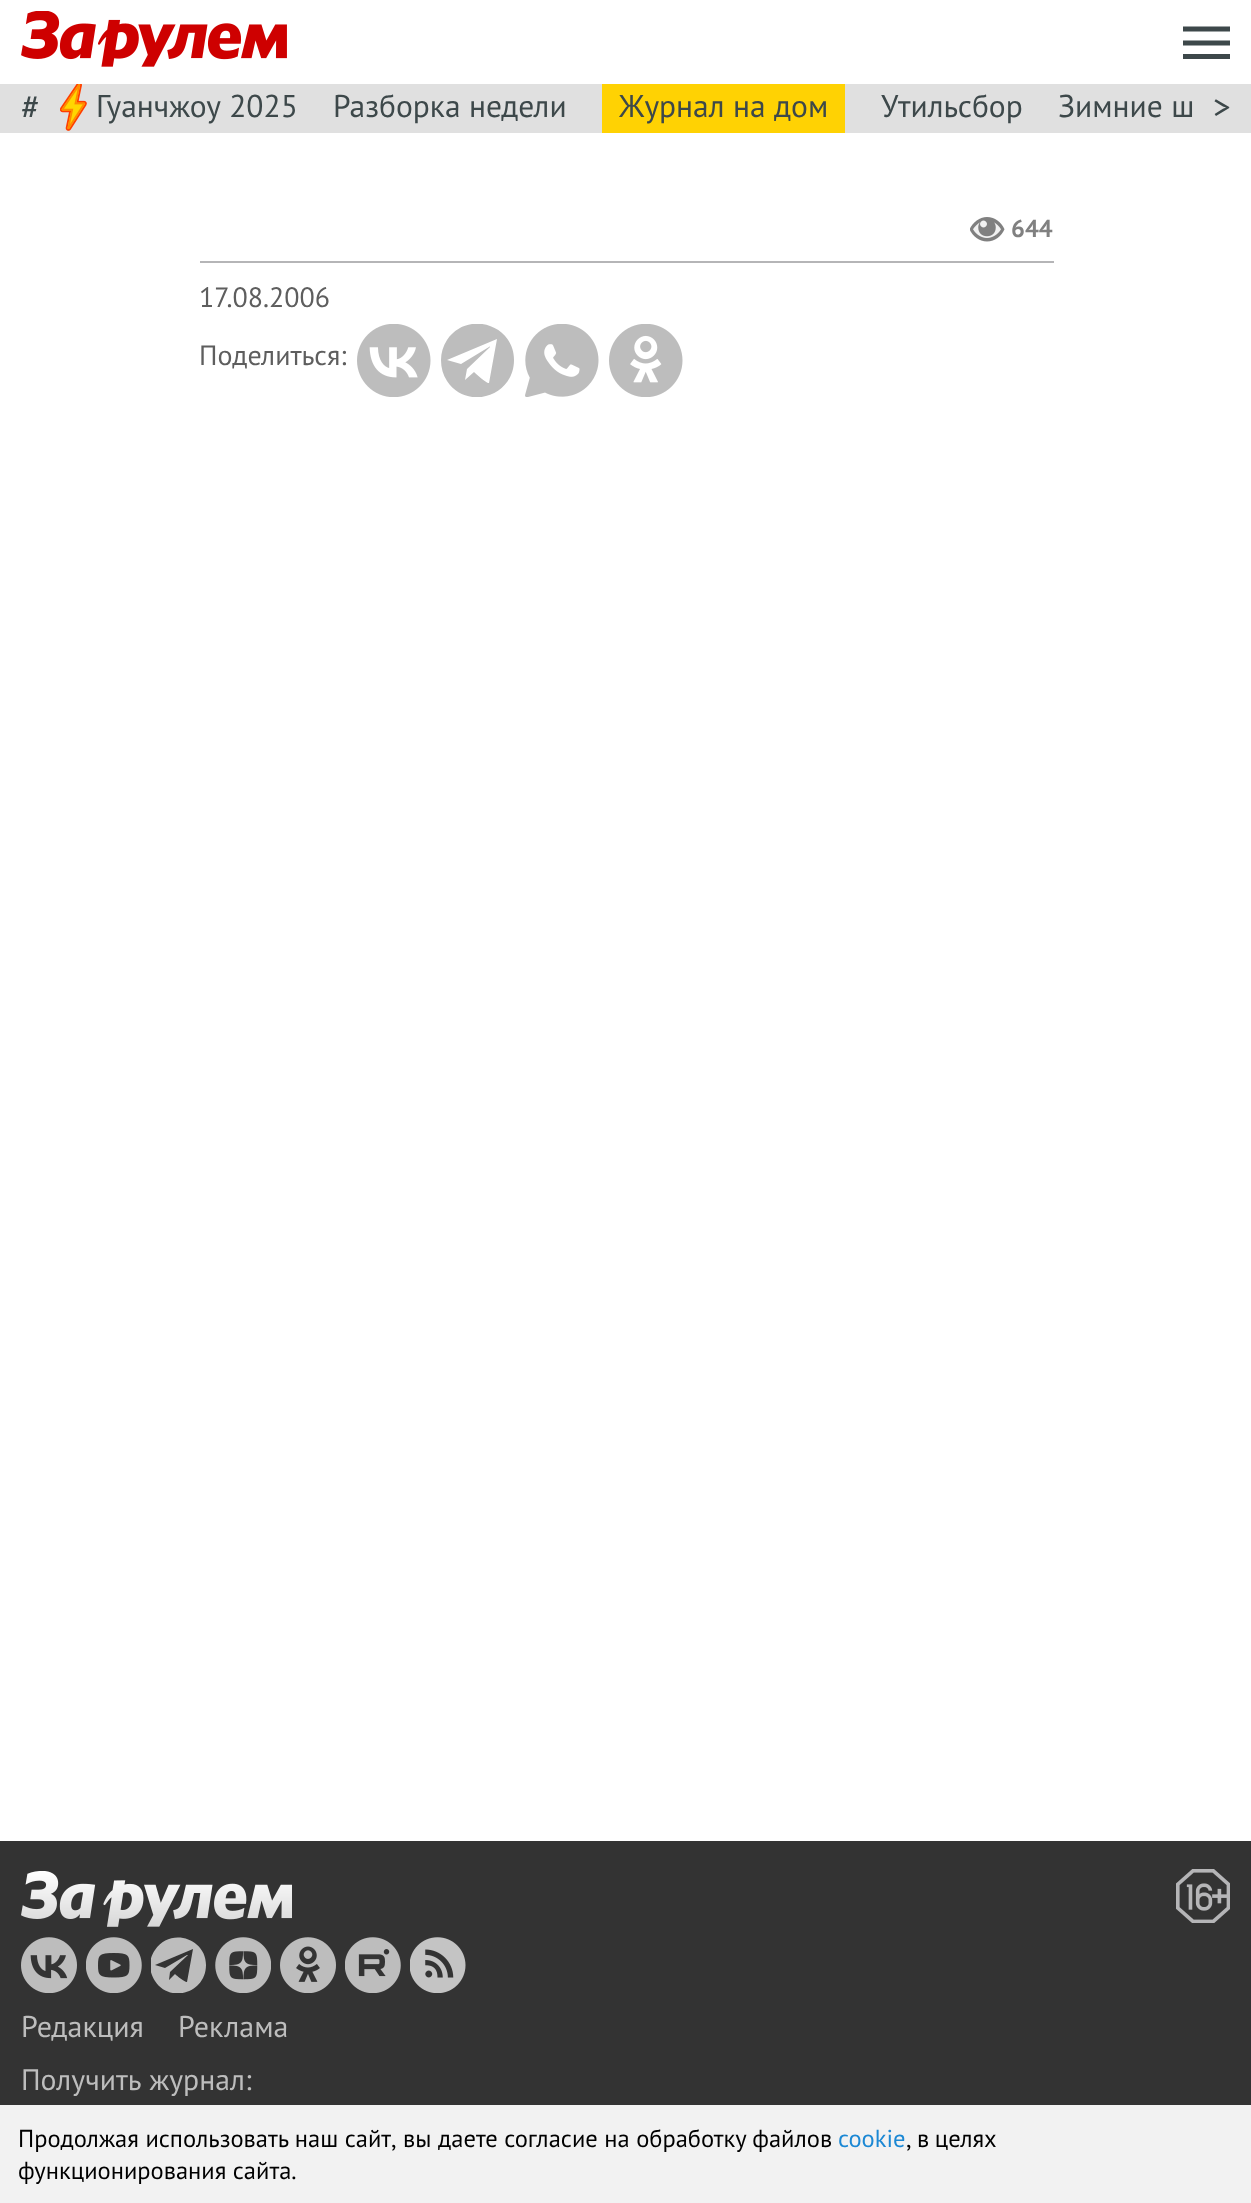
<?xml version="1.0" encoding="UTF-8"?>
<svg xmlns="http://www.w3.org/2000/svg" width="1251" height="2203">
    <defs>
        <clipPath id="clip1"><rect x="441" y="324" width="74" height="73"/></clipPath>
        <clipPath id="clip2"><rect x="151" y="1937" width="56" height="56"/></clipPath>
    </defs>
    <rect width="100%" height="100%" fill="#FFFFFF"/>
    <image x="21" y="11" width="266" height="56" href="img_01.png"/>
    <path d="M 1183 29 H 1230 M 1183 43 H 1230" fill="none" stroke="#3D484A" stroke-width="5.2"/>
    <rect x="1183" y="54" width="47" height="5" fill="#3D484A"/>
    <rect x="0" y="84" width="1251" height="49" fill="#E0E0E0"/>
    <text x="21" y="119" font-family="PT Sans" font-size="35" fill="#3D484A">#</text>
    <image x="60" y="84" width="27" height="47" href="img_02.png"/>
    <text x="96" y="117" word-spacing="1" font-family="PT Sans" font-size="31.5" fill="#3D484A">Гуанчжоу 2025</text>
    <text x="333" y="117" font-family="PT Sans" font-size="31.5" fill="#3D484A">Разборка недели</text>
    <rect x="602" y="84" width="243" height="49" fill="#FFD203"/>
    <text x="619" y="117" font-family="PT Sans" font-size="31.5" fill="#3D484A">Журнал на дом</text>
    <text x="881" y="117" font-family="PT Sans" font-size="31.5" fill="#3D484A">Утильсбор</text>
    <text x="1058" y="117" font-family="PT Sans" font-size="31.5" fill="#3D484A">Зимние ш</text>
    <text x="1213" y="119" font-family="PT Sans" font-size="35" fill="#3D484A">&gt;</text>
    <rect x="200" y="261" width="854" height="2" fill="#B5B5B7"/>
    <image x="970" y="217" width="35" height="25" href="img_03.png"/>
    <text x="1011" y="237" font-family="PT Sans" font-size="24.5" font-weight="700" fill="#808080">644</text>
    <text x="199" y="307" font-family="PT Sans" font-size="28" fill="#5E5E5E">17.08.2006</text>
    <text x="199" y="365" font-family="PT Sans" font-size="28" fill="#5E5E5E">Поделиться:</text>
    <image x="357" y="324" width="74" height="73" href="img_04.png"/>
    <g clip-path="url(#clip1)">
        <path d="M 441 360 C 441 353 443 346 447 340 C 467 310 514 324 514 360 C 514 397 467 411 447 381 C 443 375 441 368 441 360 Z M 497 339 L 447 360 L 461 364 L 489 347 C 489 347 490 346 490 347 L 489 348 L 467 369 L 465 380 L 474 372 C 476 374 487 384 489 383 Z" fill="#BDBDBD" fill-rule="evenodd"/>
    </g>
    <image x="525" y="324" width="74" height="73" href="img_05.png"/>
    <image x="609" y="324" width="74" height="73" href="img_06.png"/>
    <rect x="0" y="2105" width="1251" height="98" fill="#F2F2F2"/>
    <text x="18" y="2147" font-family="PT Sans" font-size="24.5" fill="#000000">Продолжая использовать наш сайт, вы даете согласие на обработку файлов</text>
    <text x="838" y="2147" font-family="PT Sans" font-size="24.5" fill="#1C88D4">cookie</text>
    <text x="906" y="2147" word-spacing="-1" font-family="PT Sans" font-size="24.5" fill="#000000">, в целях</text>
    <text x="18" y="2179" font-family="PT Sans" font-size="24.5" fill="#000000">функционирования сайта.</text>
    <rect x="0" y="1841" width="1251" height="264" fill="#333333"/>
    <image x="21" y="1871" width="271" height="56" href="img_07.png"/>
    <image x="1176" y="1869" width="54" height="54" href="img_08.png"/>
    <image x="21" y="1937" width="56" height="56" href="img_09.png"/>
    <image x="86" y="1937" width="56" height="56" href="img_10.png"/>
    <g clip-path="url(#clip2)">
        <path d="M 150 1965 C 150 1960 152 1954 155 1950 C 170 1927 206 1938 206 1965 C 206 1993 170 2004 155 1981 C 152 1976 150 1971 150 1965 Z M 193 1949 L 155 1965 L 165 1968 L 187 1955 H 188 L 170 1972 L 169 1980 L 175 1974 C 177 1976 186 1983 187 1982 Z" fill="#BDBDBD" fill-rule="evenodd"/>
    </g>
    <image x="215" y="1937" width="56" height="56" href="img_11.png"/>
    <image x="280" y="1937" width="56" height="56" href="img_12.png"/>
    <image x="345" y="1937" width="56" height="56" href="img_13.png"/>
    <image x="410" y="1937" width="56" height="56" href="img_14.png"/>
    <text x="21" y="2037" font-family="PT Sans" font-size="30" fill="#BDBDBD">Редакция</text>
    <text x="178" y="2037" font-family="PT Sans" font-size="30" fill="#BDBDBD">Реклама</text>
    <text x="21" y="2090" word-spacing="1" font-family="PT Sans" font-size="29.75" fill="#BDBDBD">Получить журнал:</text>
</svg>
